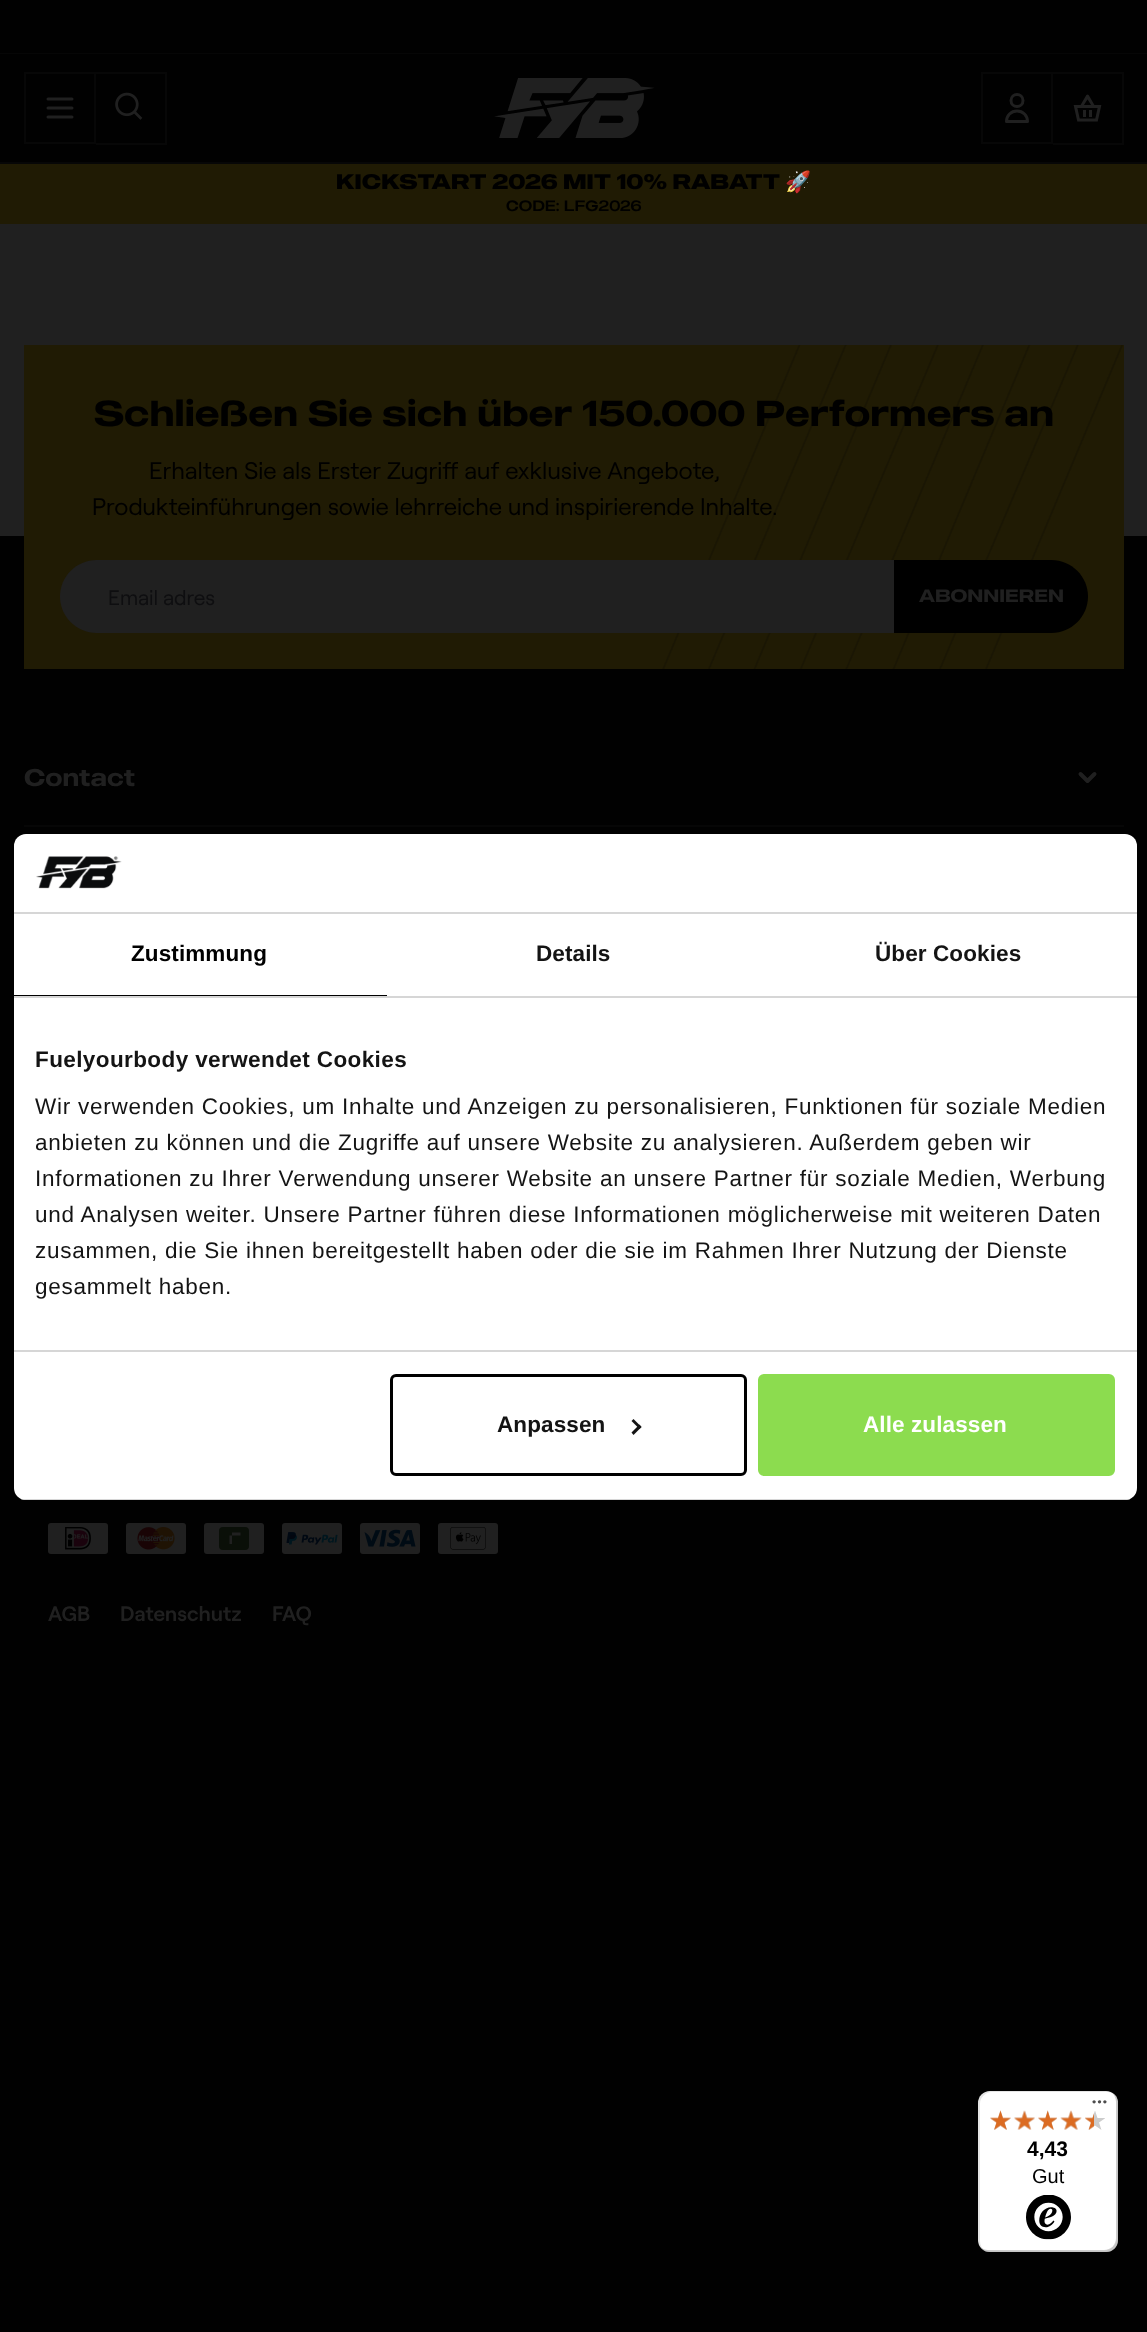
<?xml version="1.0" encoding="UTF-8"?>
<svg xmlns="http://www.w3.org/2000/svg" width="1147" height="2332">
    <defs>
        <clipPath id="clip1"><rect x="14" y="834" width="1123" height="666" rx="12"/></clipPath>
    </defs>
    <rect width="100%" height="100%" fill="#010101"/>
    <rect x="0" y="224" width="1147" height="312" fill="#202020"/>
    <rect x="0" y="53" width="1147" height="1" fill="#060606"/>
    <rect x="0" y="162" width="1147" height="2" fill="#070707"/>
    <rect x="25" y="73" width="70" height="70" fill="none" stroke="#070707" stroke-width="2"/>
    <path d="M 48 99 H 72 M 48 108 H 72 M 48 117 H 72" fill="none" stroke="#202020" stroke-width="3" stroke-linecap="round" stroke-linejoin="round"/>
    <rect x="96" y="72" width="71" height="2" fill="#070707"/>
    <rect x="165" y="72" width="2" height="72" fill="#070707"/>
    <rect x="96" y="143" width="71" height="2" fill="#070707"/>
    <image x="115" y="92" width="28" height="28" href="img_01.png"/>
    <image x="494" y="78" width="161" height="60" href="img_02.png"/>
    <rect x="982" y="73" width="70" height="70" fill="none" stroke="#070707" stroke-width="2"/>
    <path d="M 1023 100.5 C 1023 108.5 1011 108.5 1011 100.5 C 1011 92.5 1023 92.5 1023 100.5 Z M 1017 111 C 1011 111 1006.5 115.5 1006.5 121.5 H 1027.5 C 1027.5 115.5 1023 111 1017 111 Z" fill="none" stroke="#202020" stroke-width="3" stroke-linecap="round" stroke-linejoin="round"/>
    <rect x="1053" y="72" width="71" height="2" fill="#070707"/>
    <rect x="1122" y="72" width="2" height="72" fill="#070707"/>
    <rect x="1053" y="143" width="71" height="2" fill="#070707"/>
    <image x="1073" y="94" width="29" height="28" href="img_03.png"/>
    <rect x="0" y="164" width="1147" height="60" fill="#201B04"/>
    <text x="336" y="189" font-family="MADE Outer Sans" font-size="21" font-weight="700" fill="#000000">KICKSTART 2026 MIT 10% RABATT</text>
    <text x="785" y="189" font-family="Noto Color Emoji" font-size="21" font-weight="700" fill="#000000">🚀</text>
    <text x="506" y="211" font-family="MADE Outer Sans" font-size="15" fill="#000000">CODE: LFG2026</text>
    <rect x="24" y="345" width="1100" height="324" fill="#201B04"/>
    <image x="662" y="345" width="461" height="324" href="img_04.png"/>
    <text x="94" y="426" font-family="MADE Outer Sans" font-size="36" font-weight="500" fill="#000000">Schließen Sie sich über 150.000 Performers an</text>
    <text x="149" y="479" font-family="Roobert" font-size="24" fill="#000000">Erhalten Sie als Erster Zugriff auf exklusive Angebote,</text>
    <text x="92" y="515" font-family="Roobert" font-size="24" fill="#000000">Produkteinführungen sowie lehrreiche und inspirierende Inhalte.</text>
    <path d="M 96.5 560 H 894 V 633 H 96.5 C 76.5 633 60 616.5 60 596.5 C 60 576.5 76.5 560 96.5 560 Z" fill="#202020"/>
    <text x="108" y="605" font-family="Roobert" font-size="21" fill="#0E0E10">Email adres</text>
    <path d="M 894 560 H 1051.5 C 1071.5 560 1088 576.5 1088 596.5 C 1088 616.5 1071.5 633 1051.5 633 H 894 Z" fill="#000000"/>
    <text x="919" y="602" font-family="MADE Outer Sans" font-size="18" font-weight="500" fill="#202020">ABONNIEREN</text>
    <rect x="24" y="825" width="1100" height="2" fill="#060606"/>
    <text x="24" y="786" font-family="MADE Outer Sans" font-size="24" font-weight="500" fill="#202020">Contact</text>
    <path d="M 1094.5 774 L 1087.5 781 L 1080.5 774" fill="none" stroke="#202020" stroke-width="4" stroke-linecap="round" stroke-linejoin="round"/>
    <rect x="48" y="1523" width="60" height="31" rx="3" fill="#202020"/>
    <image x="65" y="1527" width="26" height="23" href="img_05.png"/>
    <rect x="126" y="1523" width="60" height="31" rx="3" fill="#202020"/>
    <image x="137" y="1527" width="38" height="23" href="img_06.png"/>
    <rect x="204" y="1523" width="60" height="31" rx="3" fill="#202020"/>
    <rect x="219" y="1527" width="30" height="23" rx="4" fill="#0A0F08"/>
    <path d="M 229.5 1535.5 H 232 V 1544 H 229.5 Z M 232 1532.5 H 240.5 V 1535.5 H 232 Z" fill="#202020"/>
    <rect x="282" y="1523" width="60" height="31" rx="3" fill="#202020"/>
    <image x="286" y="1532" width="52" height="13" href="img_07.png"/>
    <rect x="360" y="1523" width="60" height="31" rx="3" fill="#202020"/>
    <image x="364" y="1529" width="52" height="18" href="img_08.png"/>
    <rect x="438" y="1523" width="60" height="31" rx="3" fill="#202020"/>
    <image x="450" y="1527" width="36" height="23" href="img_09.png"/>
    <text x="48" y="1621" font-family="Roobert" font-size="21" font-weight="600" fill="#202020">AGB</text>
    <text x="120" y="1621" font-family="Roobert" font-size="21" font-weight="600" fill="#202020">Datenschutz</text>
    <text x="272" y="1621" font-family="Roobert" font-size="21" font-weight="600" fill="#202020">FAQ</text>
    <rect x="14" y="834" width="1123" height="666" rx="12" fill="#FFFFFF"/>
    <rect x="14" y="912" width="1123" height="2" fill="#D6D6D6"/>
    <image x="36" y="856" width="86" height="33" href="img_10.png"/>
    <rect x="14" y="996" width="1123" height="2" fill="#D6D6D6"/>
    <rect x="14" y="995" width="373" height="1" fill="#000000"/>
    <text x="131" y="961" font-family="Liberation Sans" font-size="22.5" font-weight="700" letter-spacing="0.1" fill="#000000">Zustimmung</text>
    <text x="536" y="961" font-family="Liberation Sans" font-size="22.5" font-weight="700" letter-spacing="0.1" fill="#141414">Details</text>
    <text x="875" y="961" font-family="Liberation Sans" font-size="22.5" font-weight="700" letter-spacing="0.1" fill="#141414">Über Cookies</text>
    <rect x="14" y="1350" width="1123" height="2" fill="#D6D6D6"/>
    <text x="35" y="1067" font-family="Liberation Sans" font-size="22.5" font-weight="700" letter-spacing="0.4" fill="#141414">Fuelyourbody verwendet Cookies</text>
    <text font-family="Liberation Sans" font-size="22.5" letter-spacing="0.75" fill="#141414">
        <tspan x="35" y="1114">Wir verwenden Cookies, um Inhalte und Anzeigen zu personalisieren, Funktionen für soziale Medien</tspan>
        <tspan x="35" y="1150">anbieten zu können und die Zugriffe auf unsere Website zu analysieren. Außerdem geben wir</tspan>
        <tspan x="35" y="1186">Informationen zu Ihrer Verwendung unserer Website an unsere Partner für soziale Medien, Werbung</tspan>
        <tspan x="35" y="1222">und Analysen weiter. Unsere Partner führen diese Informationen möglicherweise mit weiteren Daten</tspan>
        <tspan x="35" y="1258">zusammen, die Sie ihnen bereitgestellt haben oder die sie im Rahmen Ihrer Nutzung der Dienste</tspan>
        <tspan x="35" y="1294">gesammelt haben.</tspan>
    </text>
    <g clip-path="url(#clip1)">
        <rect x="14" y="1499" width="1123" height="1" fill="#D6D6D6"/>
    </g>
    <rect x="391.5" y="1375.5" width="354" height="99" rx="4.5" fill="none" stroke="#000000" stroke-width="3"/>
    <text x="497" y="1432" font-family="Liberation Sans" font-size="22.5" font-weight="700" letter-spacing="0.1" fill="#141414">Anpassen</text>
    <path d="M 633.5 1419 L 641.5 1427 L 639.5 1429 L 631.5 1421 Z" fill="#141414"/>
    <path d="M 639.5 1424.5 L 641.5 1427 L 633.5 1435 L 631.5 1432.5 Z" fill="#141414"/>
    <rect x="759.5" y="1375.5" width="354" height="99" rx="4.5" fill="#8CDC4F" stroke="#8CDC4F" stroke-width="3"/>
    <text x="863" y="1432" font-family="Liberation Sans" font-size="22.5" font-weight="700" letter-spacing="0.1" fill="#FFFFFF">Alle zulassen</text>
    <rect x="978" y="2091" width="140" height="161" rx="12" fill="#FFFFFF"/>
    <path d="M 992 2092 H 1107 C 1110 2092 1113 2093 1115 2095 C 1113 2093 1110 2091 1106 2091 H 990 C 983 2091 978 2096 978 2103 V 2240 C 978 2245 981 2249 985 2251 C 982 2249 980 2245 980 2241 V 2104 C 980 2098 985 2092 992 2092 Z" fill="#000000" fill-opacity="0.1"/>
    <path d="M 980 2247 C 983 2250 986 2252 990 2252 H 1106 C 1113 2252 1118 2247 1118 2240 V 2103 C 1118 2098 1115 2094 1111 2092 C 1114 2094 1116 2098 1116 2102 V 2238 C 1116 2245 1111 2250 1104 2250 H 988 C 985 2250 983 2249 980 2247 Z" fill="#000000" fill-opacity="0.2"/>
    <path d="M 981 2248 C 983 2250 986 2252 990 2252 H 1106 C 1113 2252 1118 2247 1118 2240 V 2103 C 1118 2099 1116 2096 1114 2094 C 1116 2096 1117 2099 1117 2102 V 2239 C 1117 2245 1111 2251 1105 2251 H 989 C 986 2251 983 2250 981 2248 Z" fill="#323232" fill-opacity="0.2"/>
    <path d="M 980 2246 C 982 2250 985 2252 990 2252 H 1106 C 1113 2252 1118 2247 1118 2240 V 2103 C 1118 2098 1116 2095 1112 2093 C 1115 2095 1117 2098 1117 2102 V 2239 C 1117 2245 1111 2251 1105 2251 H 989 C 985 2251 982 2249 980 2246 Z" fill="#FFFFFF" fill-opacity="0.3"/>
    <image x="1092" y="2100" width="15" height="4" href="img_11.png"/>
    <image x="990" y="2111" width="21" height="19" href="img_17.png"/>
    <image x="990" y="2110" width="21" height="20" href="img_12.png"/>
    <image x="1014" y="2111" width="21" height="19" href="img_18.png"/>
    <image x="1014" y="2110" width="21" height="20" href="img_13.png"/>
    <image x="1038" y="2111" width="19" height="19" href="img_19.png"/>
    <image x="1038" y="2110" width="19" height="20" href="img_14.png"/>
    <image x="1061" y="2111" width="20" height="19" href="img_20.png"/>
    <image x="1060" y="2110" width="22" height="20" href="img_15.png"/>
    <image x="1085" y="2111" width="20" height="19" href="img_21.png"/>
    <image x="1085" y="2113" width="9" height="17" href="img_16.png"/>
    <text x="1027" y="2156" font-family="Liberation Sans" font-size="21" font-weight="700" fill="#000000">4,43</text>
    <text x="1032" y="2183" font-family="Liberation Sans" font-size="20" fill="#000000">Gut</text>
    <image x="1026" y="2195" width="45" height="45" href="img_22.png"/>
</svg>
